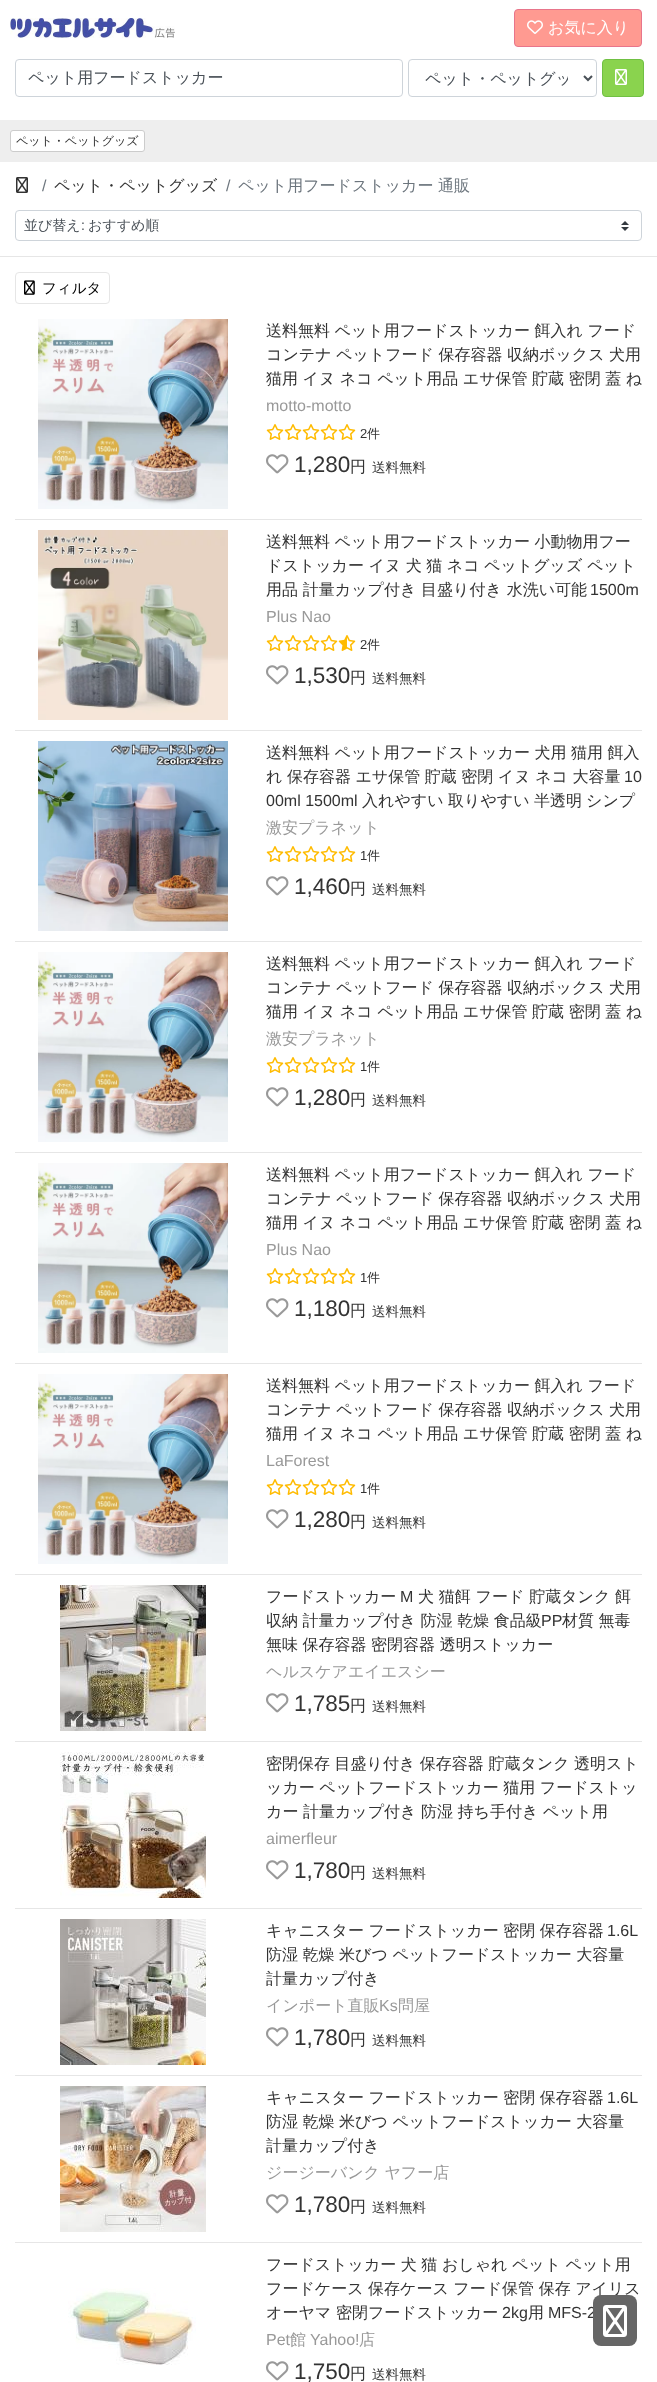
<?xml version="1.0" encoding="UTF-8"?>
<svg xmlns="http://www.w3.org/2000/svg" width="657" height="2382">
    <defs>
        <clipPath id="clip1"><rect x="425" y="69" width="143" height="19"/></clipPath>
    </defs>
    <rect width="100%" height="100%" fill="#FFFFFF"/>
    <image x="10" y="18" width="165" height="20" href="img_01.png"/>
    <rect x="514.5" y="9.5" width="127" height="37" rx="3.5" fill="#FF9A91" stroke="#E8758B"/>
    <image x="527" y="20" width="16" height="14" href="img_02.png"/>
    <text x="548" y="33" font-family="WenQuanYi Zen Hei" font-size="16" font-weight="500" fill="#FFFFFF">お気に入り</text>
    <rect x="15.5" y="59.5" width="387" height="37" rx="3.5" fill="none" stroke="#CED4DA"/>
    <text x="28" y="83" font-family="WenQuanYi Zen Hei" font-size="16" font-weight="500" fill="#495057">ペット用フードストッカー</text>
    <rect x="408.5" y="59.5" width="188" height="37" rx="3.5" fill="none" stroke="#CED4DA"/>
    <path d="M 584 76 L 588 80 L 592 76" fill="none" stroke="#495057" stroke-width="2"/>
    <g clip-path="url(#clip1)">
        <text x="425" y="84" font-family="WenQuanYi Zen Hei" font-size="16" font-weight="500" fill="#495057">ペット・ペットグッ</text>
    </g>
    <rect x="602.5" y="59.5" width="41" height="37" rx="3.5" fill="#8AD34E" stroke="#70C043"/>
    <image x="615" y="69" width="12" height="16" href="img_03.png"/>
    <rect x="0" y="120" width="657" height="42" fill="#EEEEEE"/>
    <rect x="10.5" y="130.5" width="134" height="21" rx="2.5" fill="#FFFFFF" stroke="#CCCCCC"/>
    <text x="16" y="145" font-family="WenQuanYi Zen Hei" font-size="12" font-weight="500" fill="#333333">ペット・ペットグッズ</text>
    <rect x="0" y="256" width="657" height="1" fill="#E6E6E6"/>
    <image x="16" y="177" width="12" height="16" href="img_04.png"/>
    <text x="42" y="191" font-family="Liberation Sans" font-size="16" fill="#6C757D">/</text>
    <text x="54" y="191" font-family="WenQuanYi Zen Hei" font-size="16" font-weight="500" fill="#333333">ペット・ペットグッズ</text>
    <text x="226" y="191" font-family="Liberation Sans" font-size="16" fill="#6C757D">/</text>
    <text x="238" y="191" word-spacing="-0.25" font-family="WenQuanYi Zen Hei" font-size="16" font-weight="500" fill="#6C757D">ペット用フードストッカー 通販</text>
    <image x="621" y="221" width="8" height="10" href="img_05.png"/>
    <rect x="15.5" y="210.5" width="626" height="30" rx="3.5" fill="none" stroke="#CED4DA"/>
    <text x="24" y="230" font-family="WenQuanYi Zen Hei" font-size="14" font-weight="500" fill="#495057">並び替え</text>
    <text x="81" y="230" font-family="Liberation Sans" font-size="14" fill="#495057">:</text>
    <text x="88" y="230" font-family="WenQuanYi Zen Hei" font-size="14" font-weight="500" fill="#495057">おすすめ順</text>
    <rect x="15.5" y="272.5" width="94" height="31" rx="3.5" fill="none" stroke="#E6E6E6"/>
    <image x="24" y="280" width="11" height="15" href="img_06.png"/>
    <text x="42" y="293" font-family="WenQuanYi Zen Hei" font-size="14.5" font-weight="500" fill="#000000">フィルタ</text>
    <rect x="15" y="519" width="627" height="1" fill="#E6E6E6"/>
    <image x="38" y="319" width="190" height="190" href="img_07.png"/>
    <text font-family="WenQuanYi Zen Hei" font-size="16" font-weight="500" fill="#333333">
        <tspan x="266" y="336" word-spacing="-0.25">送料無料 ペット用フードストッカー 餌入れ フード</tspan>
        <tspan x="266" y="360" word-spacing="-0.25">コンテナ ペットフード 保存容器 収納ボックス 犬用</tspan>
        <tspan x="266" y="384" word-spacing="-0.25">猫用 イヌ ネコ ペット用品 エサ保管 貯蔵 密閉 蓋 ね</tspan>
    </text>
    <text x="266" y="411" font-family="Liberation Sans" font-size="16" fill="#999999">motto-motto</text>
    <image x="266" y="424" width="18" height="16" href="img_08.png"/>
    <image x="284" y="424" width="18" height="16" href="img_08.png"/>
    <image x="302" y="424" width="18" height="16" href="img_08.png"/>
    <image x="320" y="424" width="18" height="16" href="img_08.png"/>
    <image x="338" y="424" width="18" height="16" href="img_08.png"/>
    <text x="360" y="438" font-family="Liberation Sans" font-size="13" fill="#333333">2</text>
    <text x="367" y="438" font-family="WenQuanYi Zen Hei" font-size="13" font-weight="500" fill="#333333">件</text>
    <image x="266" y="454" width="23" height="20" href="img_09.png"/>
    <text x="294" y="472" font-family="Liberation Sans" font-size="22.5" fill="#333333">1,280</text>
    <text x="350" y="472" font-family="WenQuanYi Zen Hei" font-size="16" font-weight="500" fill="#333333">円</text>
    <text x="372" y="472" font-family="WenQuanYi Zen Hei" font-size="13.5" font-weight="500" fill="#333333">送料無料</text>
    <rect x="15" y="730" width="627" height="1" fill="#E6E6E6"/>
    <image x="38" y="530" width="190" height="190" href="img_10.png"/>
    <text font-family="WenQuanYi Zen Hei" font-size="16" font-weight="500" fill="#333333">
        <tspan x="266" y="547" word-spacing="-0.25">送料無料 ペット用フードストッカー 小動物用フー</tspan>
        <tspan x="266" y="571" word-spacing="-0.25">ドストッカー イヌ 犬 猫 ネコ ペットグッズ ペット</tspan>
        <tspan x="266" y="595">用品 計量カップ付き 目盛り付き 水洗い可能</tspan>
    </text>
    <text x="590" y="595" font-family="Liberation Sans" font-size="16" fill="#333333">1500m</text>
    <text x="266" y="622" font-family="Liberation Sans" font-size="16" fill="#999999">Plus Nao</text>
    <image x="266" y="635" width="18" height="16" href="img_08.png"/>
    <image x="284" y="635" width="18" height="16" href="img_08.png"/>
    <image x="302" y="635" width="18" height="16" href="img_08.png"/>
    <image x="320" y="635" width="18" height="16" href="img_08.png"/>
    <image x="338" y="635" width="18" height="16" href="img_11.png"/>
    <text x="360" y="649" font-family="Liberation Sans" font-size="13" fill="#333333">2</text>
    <text x="367" y="649" font-family="WenQuanYi Zen Hei" font-size="13" font-weight="500" fill="#333333">件</text>
    <image x="266" y="665" width="23" height="20" href="img_09.png"/>
    <text x="294" y="683" font-family="Liberation Sans" font-size="22.5" fill="#333333">1,530</text>
    <text x="350" y="683" font-family="WenQuanYi Zen Hei" font-size="16" font-weight="500" fill="#333333">円</text>
    <text x="372" y="683" font-family="WenQuanYi Zen Hei" font-size="13.5" font-weight="500" fill="#333333">送料無料</text>
    <rect x="15" y="941" width="627" height="1" fill="#E6E6E6"/>
    <image x="38" y="741" width="190" height="190" href="img_12.png"/>
    <text font-family="WenQuanYi Zen Hei" font-size="16" font-weight="500" fill="#333333">
        <tspan x="266" y="758" word-spacing="-0.25">送料無料 ペット用フードストッカー 犬用 猫用 餌入</tspan>
        <tspan x="266" y="782" word-spacing="-0.25">れ 保存容器 エサ保管 貯蔵 密閉 イヌ ネコ 大容量</tspan>
    </text>
    <text x="624" y="782" font-family="Liberation Sans" font-size="16" fill="#333333">10</text>
    <text x="266" y="806" font-family="Liberation Sans" font-size="16" fill="#333333">00ml 1500ml</text>
    <text x="362" y="806" font-family="WenQuanYi Zen Hei" font-size="16" font-weight="500" fill="#333333">入れやすい</text>
    <text x="448" y="806" font-family="WenQuanYi Zen Hei" font-size="16" font-weight="500" fill="#333333">取りやすい</text>
    <text x="534" y="806" font-family="WenQuanYi Zen Hei" font-size="16" font-weight="500" fill="#333333">半透明</text>
    <text x="586" y="806" font-family="WenQuanYi Zen Hei" font-size="16" font-weight="500" fill="#333333">シンプ</text>
    <text x="266" y="833" font-family="WenQuanYi Zen Hei" font-size="16" font-weight="500" fill="#999999">激安プラネット</text>
    <image x="266" y="846" width="18" height="16" href="img_08.png"/>
    <image x="284" y="846" width="18" height="16" href="img_08.png"/>
    <image x="302" y="846" width="18" height="16" href="img_08.png"/>
    <image x="320" y="846" width="18" height="16" href="img_08.png"/>
    <image x="338" y="846" width="18" height="16" href="img_08.png"/>
    <text x="360" y="860" font-family="Liberation Sans" font-size="13" fill="#333333">1</text>
    <text x="367" y="860" font-family="WenQuanYi Zen Hei" font-size="13" font-weight="500" fill="#333333">件</text>
    <image x="266" y="876" width="23" height="20" href="img_09.png"/>
    <text x="294" y="894" font-family="Liberation Sans" font-size="22.5" fill="#333333">1,460</text>
    <text x="350" y="894" font-family="WenQuanYi Zen Hei" font-size="16" font-weight="500" fill="#333333">円</text>
    <text x="372" y="894" font-family="WenQuanYi Zen Hei" font-size="13.5" font-weight="500" fill="#333333">送料無料</text>
    <rect x="15" y="1152" width="627" height="1" fill="#E6E6E6"/>
    <image x="38" y="952" width="190" height="190" href="img_13.png"/>
    <text font-family="WenQuanYi Zen Hei" font-size="16" font-weight="500" fill="#333333">
        <tspan x="266" y="969" word-spacing="-0.25">送料無料 ペット用フードストッカー 餌入れ フード</tspan>
        <tspan x="266" y="993" word-spacing="-0.25">コンテナ ペットフード 保存容器 収納ボックス 犬用</tspan>
        <tspan x="266" y="1017" word-spacing="-0.25">猫用 イヌ ネコ ペット用品 エサ保管 貯蔵 密閉 蓋 ね</tspan>
    </text>
    <text x="266" y="1044" font-family="WenQuanYi Zen Hei" font-size="16" font-weight="500" fill="#999999">激安プラネット</text>
    <image x="266" y="1057" width="18" height="16" href="img_08.png"/>
    <image x="284" y="1057" width="18" height="16" href="img_08.png"/>
    <image x="302" y="1057" width="18" height="16" href="img_08.png"/>
    <image x="320" y="1057" width="18" height="16" href="img_08.png"/>
    <image x="338" y="1057" width="18" height="16" href="img_08.png"/>
    <text x="360" y="1071" font-family="Liberation Sans" font-size="13" fill="#333333">1</text>
    <text x="367" y="1071" font-family="WenQuanYi Zen Hei" font-size="13" font-weight="500" fill="#333333">件</text>
    <image x="266" y="1087" width="23" height="20" href="img_09.png"/>
    <text x="294" y="1105" font-family="Liberation Sans" font-size="22.5" fill="#333333">1,280</text>
    <text x="350" y="1105" font-family="WenQuanYi Zen Hei" font-size="16" font-weight="500" fill="#333333">円</text>
    <text x="372" y="1105" font-family="WenQuanYi Zen Hei" font-size="13.5" font-weight="500" fill="#333333">送料無料</text>
    <rect x="15" y="1363" width="627" height="1" fill="#E6E6E6"/>
    <image x="38" y="1163" width="190" height="190" href="img_14.png"/>
    <text font-family="WenQuanYi Zen Hei" font-size="16" font-weight="500" fill="#333333">
        <tspan x="266" y="1180" word-spacing="-0.25">送料無料 ペット用フードストッカー 餌入れ フード</tspan>
        <tspan x="266" y="1204" word-spacing="-0.25">コンテナ ペットフード 保存容器 収納ボックス 犬用</tspan>
        <tspan x="266" y="1228" word-spacing="-0.25">猫用 イヌ ネコ ペット用品 エサ保管 貯蔵 密閉 蓋 ね</tspan>
    </text>
    <text x="266" y="1255" font-family="Liberation Sans" font-size="16" fill="#999999">Plus Nao</text>
    <image x="266" y="1268" width="18" height="16" href="img_08.png"/>
    <image x="284" y="1268" width="18" height="16" href="img_08.png"/>
    <image x="302" y="1268" width="18" height="16" href="img_08.png"/>
    <image x="320" y="1268" width="18" height="16" href="img_08.png"/>
    <image x="338" y="1268" width="18" height="16" href="img_08.png"/>
    <text x="360" y="1282" font-family="Liberation Sans" font-size="13" fill="#333333">1</text>
    <text x="367" y="1282" font-family="WenQuanYi Zen Hei" font-size="13" font-weight="500" fill="#333333">件</text>
    <image x="266" y="1298" width="23" height="20" href="img_09.png"/>
    <text x="294" y="1316" font-family="Liberation Sans" font-size="22.5" fill="#333333">1,180</text>
    <text x="350" y="1316" font-family="WenQuanYi Zen Hei" font-size="16" font-weight="500" fill="#333333">円</text>
    <text x="372" y="1316" font-family="WenQuanYi Zen Hei" font-size="13.5" font-weight="500" fill="#333333">送料無料</text>
    <rect x="15" y="1574" width="627" height="1" fill="#E6E6E6"/>
    <image x="38" y="1374" width="190" height="190" href="img_13.png"/>
    <text font-family="WenQuanYi Zen Hei" font-size="16" font-weight="500" fill="#333333">
        <tspan x="266" y="1391" word-spacing="-0.25">送料無料 ペット用フードストッカー 餌入れ フード</tspan>
        <tspan x="266" y="1415" word-spacing="-0.25">コンテナ ペットフード 保存容器 収納ボックス 犬用</tspan>
        <tspan x="266" y="1439" word-spacing="-0.25">猫用 イヌ ネコ ペット用品 エサ保管 貯蔵 密閉 蓋 ね</tspan>
    </text>
    <text x="266" y="1466" font-family="Liberation Sans" font-size="16" fill="#999999">LaForest</text>
    <image x="266" y="1479" width="18" height="16" href="img_08.png"/>
    <image x="284" y="1479" width="18" height="16" href="img_08.png"/>
    <image x="302" y="1479" width="18" height="16" href="img_08.png"/>
    <image x="320" y="1479" width="18" height="16" href="img_08.png"/>
    <image x="338" y="1479" width="18" height="16" href="img_08.png"/>
    <text x="360" y="1493" font-family="Liberation Sans" font-size="13" fill="#333333">1</text>
    <text x="367" y="1493" font-family="WenQuanYi Zen Hei" font-size="13" font-weight="500" fill="#333333">件</text>
    <image x="266" y="1509" width="23" height="20" href="img_09.png"/>
    <text x="294" y="1527" font-family="Liberation Sans" font-size="22.5" fill="#333333">1,280</text>
    <text x="350" y="1527" font-family="WenQuanYi Zen Hei" font-size="16" font-weight="500" fill="#333333">円</text>
    <text x="372" y="1527" font-family="WenQuanYi Zen Hei" font-size="13.5" font-weight="500" fill="#333333">送料無料</text>
    <rect x="15" y="1741" width="627" height="1" fill="#E6E6E6"/>
    <image x="60" y="1585" width="146" height="146" href="img_15.png"/>
    <text x="266" y="1602" font-family="WenQuanYi Zen Hei" font-size="16" font-weight="500" fill="#333333">フードストッカー</text>
    <text x="400" y="1602" font-family="Liberation Sans" font-size="16" fill="#333333">M</text>
    <text x="418" y="1602" font-family="WenQuanYi Zen Hei" font-size="16" font-weight="500" fill="#333333">犬 猫餌 フード 貯蔵タンク 餌</text>
    <text x="266" y="1626" word-spacing="-0.25" font-family="WenQuanYi Zen Hei" font-size="16" font-weight="500" fill="#333333">収納 計量カップ付き 防湿 乾燥 食品級</text>
    <text x="541" y="1626" font-family="Liberation Sans" font-size="16" fill="#333333">PP</text>
    <text x="562" y="1626" word-spacing="-0.25" font-family="WenQuanYi Zen Hei" font-size="16" font-weight="500" fill="#333333">材質 無毒</text>
    <text x="266" y="1650" word-spacing="-0.25" font-family="WenQuanYi Zen Hei" font-size="16" font-weight="500" fill="#333333">無味 保存容器 密閉容器 透明ストッカー</text>
    <text x="266" y="1677" font-family="WenQuanYi Zen Hei" font-size="16" font-weight="500" fill="#999999">ヘルスケアエイエスシー</text>
    <image x="266" y="1693" width="23" height="20" href="img_09.png"/>
    <text x="294" y="1711" font-family="Liberation Sans" font-size="22.5" fill="#333333">1,785</text>
    <text x="350" y="1711" font-family="WenQuanYi Zen Hei" font-size="16" font-weight="500" fill="#333333">円</text>
    <text x="372" y="1711" font-family="WenQuanYi Zen Hei" font-size="13.5" font-weight="500" fill="#333333">送料無料</text>
    <rect x="15" y="1908" width="627" height="1" fill="#E6E6E6"/>
    <image x="60" y="1752" width="146" height="146" href="img_16.png"/>
    <text font-family="WenQuanYi Zen Hei" font-size="16" font-weight="500" fill="#333333">
        <tspan x="266" y="1769" word-spacing="-0.25">密閉保存 目盛り付き 保存容器 貯蔵タンク 透明スト</tspan>
        <tspan x="266" y="1793" word-spacing="-0.25">ッカー ペットフードストッカー 猫用 フードストッ</tspan>
        <tspan x="266" y="1817" word-spacing="-0.25">カー 計量カップ付き 防湿 持ち手付き ペット用</tspan>
    </text>
    <text x="266" y="1844" font-family="Liberation Sans" font-size="16" fill="#999999">aimerfleur</text>
    <image x="266" y="1860" width="23" height="20" href="img_09.png"/>
    <text x="294" y="1878" font-family="Liberation Sans" font-size="22.5" fill="#333333">1,780</text>
    <text x="350" y="1878" font-family="WenQuanYi Zen Hei" font-size="16" font-weight="500" fill="#333333">円</text>
    <text x="372" y="1878" font-family="WenQuanYi Zen Hei" font-size="13.5" font-weight="500" fill="#333333">送料無料</text>
    <rect x="15" y="2075" width="627" height="1" fill="#E6E6E6"/>
    <image x="60" y="1919" width="146" height="146" href="img_17.png"/>
    <text x="266" y="1936" word-spacing="-0.25" font-family="WenQuanYi Zen Hei" font-size="16" font-weight="500" fill="#333333">キャニスター フードストッカー 密閉 保存容器</text>
    <text x="607" y="1936" font-family="Liberation Sans" font-size="16" fill="#333333">1.6L</text>
    <text font-family="WenQuanYi Zen Hei" font-size="16" font-weight="500" fill="#333333">
        <tspan x="266" y="1960" word-spacing="-0.25">防湿 乾燥 米びつ ペットフードストッカー 大容量</tspan>
        <tspan x="266" y="1984">計量カップ付き</tspan>
    </text>
    <text x="266" y="2011" font-family="WenQuanYi Zen Hei" font-size="16" font-weight="500" fill="#999999">インポート直販</text>
    <text x="379" y="2011" font-family="Liberation Sans" font-size="16" fill="#999999">Ks</text>
    <text x="398" y="2011" font-family="WenQuanYi Zen Hei" font-size="16" font-weight="500" fill="#999999">問屋</text>
    <image x="266" y="2027" width="23" height="20" href="img_09.png"/>
    <text x="294" y="2045" font-family="Liberation Sans" font-size="22.5" fill="#333333">1,780</text>
    <text x="350" y="2045" font-family="WenQuanYi Zen Hei" font-size="16" font-weight="500" fill="#333333">円</text>
    <text x="372" y="2045" font-family="WenQuanYi Zen Hei" font-size="13.5" font-weight="500" fill="#333333">送料無料</text>
    <rect x="15" y="2242" width="627" height="1" fill="#E6E6E6"/>
    <image x="60" y="2086" width="146" height="146" href="img_18.png"/>
    <text x="266" y="2103" word-spacing="-0.25" font-family="WenQuanYi Zen Hei" font-size="16" font-weight="500" fill="#333333">キャニスター フードストッカー 密閉 保存容器</text>
    <text x="607" y="2103" font-family="Liberation Sans" font-size="16" fill="#333333">1.6L</text>
    <text font-family="WenQuanYi Zen Hei" font-size="16" font-weight="500" fill="#333333">
        <tspan x="266" y="2127" word-spacing="-0.25">防湿 乾燥 米びつ ペットフードストッカー 大容量</tspan>
        <tspan x="266" y="2151">計量カップ付き</tspan>
    </text>
    <text x="266" y="2178" word-spacing="-0.25" font-family="WenQuanYi Zen Hei" font-size="16" font-weight="500" fill="#999999">ジージーバンク ヤフー店</text>
    <image x="266" y="2194" width="23" height="20" href="img_09.png"/>
    <text x="294" y="2212" font-family="Liberation Sans" font-size="22.5" fill="#333333">1,780</text>
    <text x="350" y="2212" font-family="WenQuanYi Zen Hei" font-size="16" font-weight="500" fill="#333333">円</text>
    <text x="372" y="2212" font-family="WenQuanYi Zen Hei" font-size="13.5" font-weight="500" fill="#333333">送料無料</text>
    <image x="68" y="2288" width="128" height="77" href="img_19.png"/>
    <text font-family="WenQuanYi Zen Hei" font-size="16" font-weight="500" fill="#333333">
        <tspan x="266" y="2270" word-spacing="-0.25">フードストッカー 犬 猫 おしゃれ ペット ペット用</tspan>
        <tspan x="266" y="2294" word-spacing="-0.25">フードケース 保存ケース フード保管 保存 アイリス</tspan>
        <tspan x="266" y="2318">オーヤマ 密閉フードストッカー</tspan>
    </text>
    <text x="502" y="2318" font-family="Liberation Sans" font-size="16" fill="#333333">2kg</text>
    <text x="528" y="2318" font-family="WenQuanYi Zen Hei" font-size="16" font-weight="500" fill="#333333">用</text>
    <text x="548" y="2318" font-family="Liberation Sans" font-size="16" fill="#333333">MFS-2</text>
    <text x="266" y="2345" font-family="Liberation Sans" font-size="16" fill="#999999">Pet</text>
    <text x="290" y="2345" font-family="WenQuanYi Zen Hei" font-size="16" font-weight="500" fill="#999999">館</text>
    <text x="310" y="2345" font-family="Liberation Sans" font-size="16" fill="#999999">Yahoo!</text>
    <text x="359" y="2345" font-family="WenQuanYi Zen Hei" font-size="16" font-weight="500" fill="#999999">店</text>
    <image x="266" y="2361" width="23" height="20" href="img_09.png"/>
    <text x="294" y="2379" font-family="Liberation Sans" font-size="22.5" fill="#333333">1,750</text>
    <text x="350" y="2379" font-family="WenQuanYi Zen Hei" font-size="16" font-weight="500" fill="#333333">円</text>
    <text x="372" y="2379" font-family="WenQuanYi Zen Hei" font-size="13.5" font-weight="500" fill="#333333">送料無料</text>
    <rect x="593" y="2295" width="44" height="51" rx="8" fill="#666666"/>
    <image x="603" y="2305" width="24" height="32" href="img_20.png"/>
</svg>
